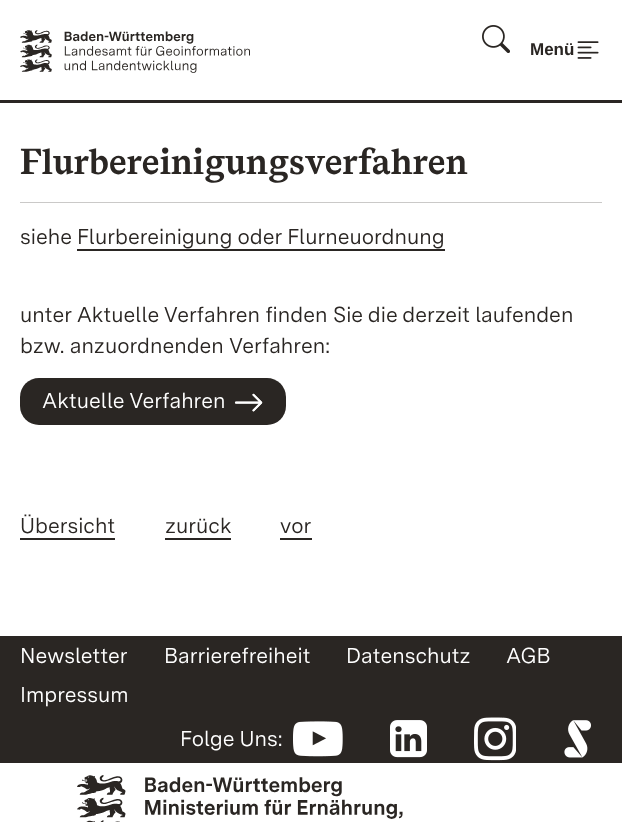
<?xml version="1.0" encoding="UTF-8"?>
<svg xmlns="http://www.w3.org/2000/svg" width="622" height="822">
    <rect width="100%" height="100%" fill="#FFFFFF"/>
    <rect x="0" y="100" width="622" height="3" fill="#2A2623"/>
    <image x="20" y="30" width="230" height="43" href="img_01.png"/>
    <image x="482" y="25" width="28" height="28" href="img_02.png"/>
    <text x="530" y="55" font-family="Liberation Sans" font-size="17" font-weight="700" fill="#2A2623">Menü</text>
    <image x="577" y="41" width="22" height="18" href="img_03.png"/>
    <text x="20" y="174" font-family="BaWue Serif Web" font-size="36" font-weight="700" fill="#2A2623">Flurbereinigungsverfahren</text>
    <rect x="20" y="202" width="582" height="1" fill="#CAC9C8"/>
    <text x="20" y="244" font-family="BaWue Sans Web" font-size="21.6" fill="#2A2623">siehe Flurbereinigung oder Flurneuordnung</text>
    <rect x="77" y="249" width="368" height="2" fill="#2A2623"/>
    <text font-family="BaWue Sans Web" font-size="21.6" fill="#2A2623">
        <tspan x="20" y="322">unter Aktuelle Verfahren finden Sie die derzeit laufenden</tspan>
        <tspan x="20" y="353">bzw. anzuordnenden Verfahren:</tspan>
    </text>
    <rect x="20" y="378" width="266" height="47" rx="19" fill="#2A2623"/>
    <text x="42" y="408" font-family="BaWue Sans Web" font-size="21.6" fill="#FFFFFF">Aktuelle Verfahren</text>
    <image x="234" y="393" width="29" height="19" href="img_04.png"/>
    <text x="20" y="533" font-family="BaWue Sans Web" font-size="21.6" fill="#2A2623">Übersicht</text>
    <rect x="20" y="538" width="95" height="2" fill="#2A2623"/>
    <text x="165" y="533" font-family="BaWue Sans Web" font-size="21.6" fill="#2A2623">zurück</text>
    <rect x="165" y="538" width="66" height="2" fill="#2A2623"/>
    <text x="280" y="533" font-family="BaWue Sans Web" font-size="21.6" fill="#2A2623">vor</text>
    <rect x="280" y="538" width="32" height="2" fill="#2A2623"/>
    <rect x="0" y="636" width="622" height="127" fill="#2A2623"/>
    <text x="20" y="663" font-family="BaWue Sans Web" font-size="21.6" fill="#FFFFFF">Newsletter</text>
    <text x="164" y="663" font-family="BaWue Sans Web" font-size="21.6" fill="#FFFFFF">Barrierefreiheit</text>
    <text x="346" y="663" font-family="BaWue Sans Web" font-size="21.6" fill="#FFFFFF">Datenschutz</text>
    <text x="506" y="663" font-family="BaWue Sans Web" font-size="21.6" fill="#FFFFFF">AGB</text>
    <text x="20" y="702" font-family="BaWue Sans Web" font-size="21.6" fill="#FFFFFF">Impressum</text>
    <text x="180" y="746" font-family="BaWue Sans Web" font-size="21.6" fill="#FFFFFF">Folge Uns:</text>
    <image x="293" y="721" width="50" height="36" href="img_05.png"/>
    <image x="390" y="720" width="37" height="38" href="img_06.png"/>
    <image x="474" y="717" width="42" height="44" href="img_07.png"/>
    <image x="564" y="720" width="27" height="38" href="img_08.png"/>
    <image x="77" y="775" width="326" height="47" href="img_09.png"/>
</svg>
